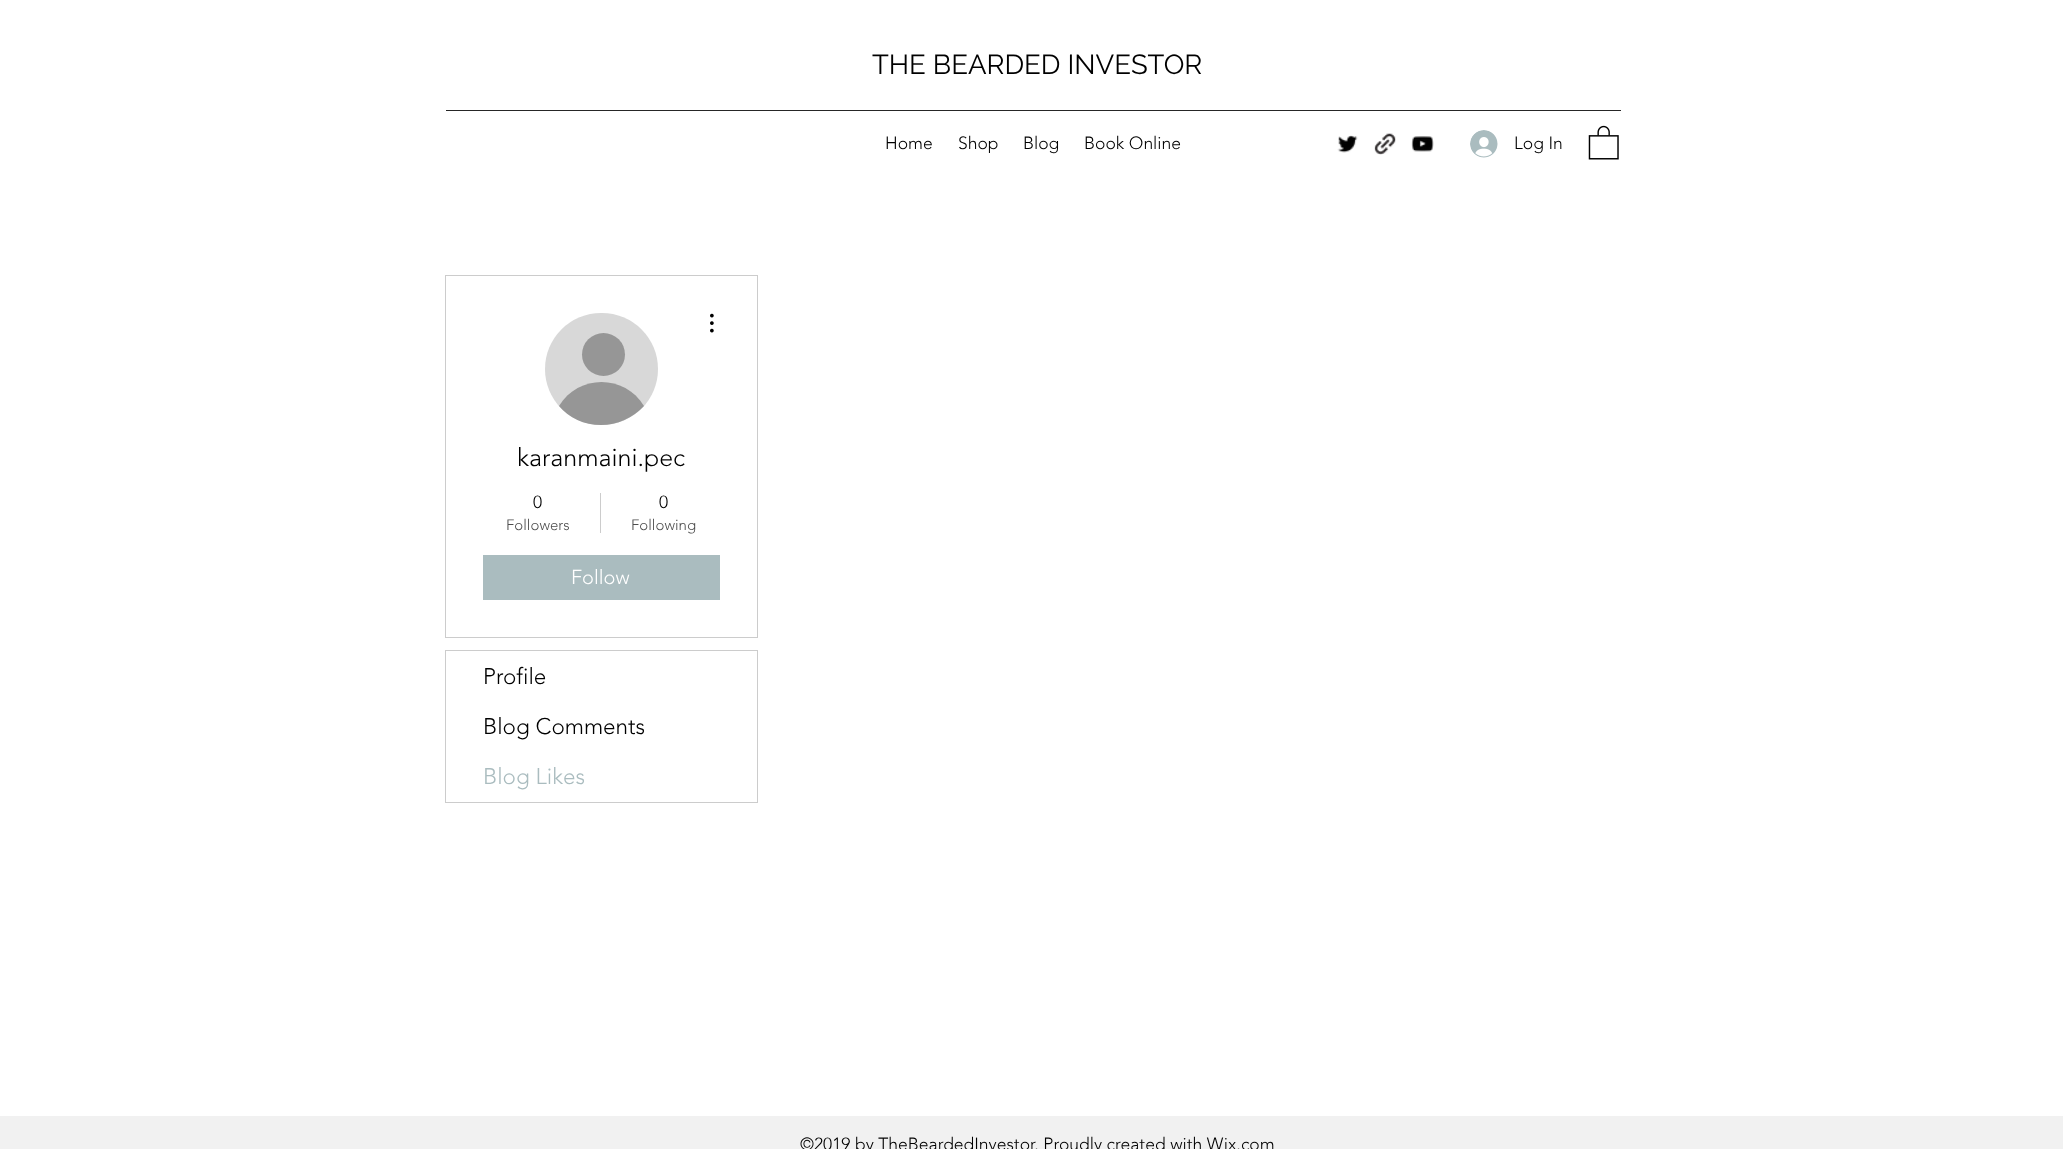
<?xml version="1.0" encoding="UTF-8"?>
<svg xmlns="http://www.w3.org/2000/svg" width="2063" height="1149">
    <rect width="100%" height="100%" fill="#FFFFFF"/>
    <text x="872" y="74" font-family="Raleway" font-size="27.5" fill="#000000">THE BEARDED INVESTOR</text>
    <rect x="446" y="110" width="1175" height="1" fill="#262626"/>
    <text x="885" y="149" font-family="'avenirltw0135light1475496'" font-size="17.5" font-weight="300" fill="#000000">Home</text>
    <text x="958" y="149" font-family="'avenirltw0135light1475496'" font-size="17.5" font-weight="300" fill="#000000">Shop</text>
    <text x="1023" y="149" font-family="'avenirltw0135light1475496'" font-size="17.5" font-weight="300" fill="#000000">Blog</text>
    <text x="1084" y="149" font-family="'avenirltw0135light1475496'" font-size="17.5" font-weight="300" fill="#000000">Book Online</text>
    <image x="1337" y="135" width="21" height="18" href="img_01.png"/>
    <image x="1374" y="133" width="22" height="22" href="img_02.png"/>
    <image x="1411" y="136" width="23" height="16" href="img_03.png"/>
    <image x="1470" y="130" width="28" height="28" href="img_04.png"/>
    <text x="1514" y="149" font-family="'avenirltw0135light1475496'" font-size="17.5" font-weight="300" fill="#000000">Log In</text>
    <image x="1588" y="125" width="31" height="35" href="img_05.png"/>
    <rect x="445.5" y="275.5" width="312" height="362" fill="none" stroke="#CCCCCC"/>
    <rect x="545" y="313" width="113" height="112" rx="56" fill="#D8D8D8"/>
    <circle cx="603.5" cy="354.5" r="21.5" fill="#969696"/>
    <path d="M 601 425 C 617 425 633 418 644 406 C 625 374 578 374 559 406 C 569 418 584 425 601 425 Z" fill="#969696"/>
    <image x="710" y="313" width="4" height="20" href="img_06.png"/>
    <text x="517" y="466" font-family="'avenirltw0135light1475496'" font-size="25" font-weight="300" fill="#000000">karanmaini.pec</text>
    <text x="533" y="508" font-family="'avenirltw0135light1475496'" font-size="17.5" font-weight="300" fill="#000000">0</text>
    <text x="506" y="530" font-family="'avenirltw0135light1475496'" font-size="15" font-weight="300" fill="#4D4D4D">Followers</text>
    <rect x="600" y="493" width="1" height="40" fill="#CCCCCC"/>
    <text x="659" y="508" font-family="'avenirltw0135light1475496'" font-size="17.5" font-weight="300" fill="#000000">0</text>
    <text x="631" y="530" font-family="'avenirltw0135light1475496'" font-size="15" font-weight="300" fill="#4D4D4D">Following</text>
    <rect x="483" y="555" width="237" height="45" fill="#AABCBF"/>
    <text x="571" y="584" font-family="'avenirltw0135light1475496'" font-size="20" font-weight="300" fill="#FFFFFF">Follow</text>
    <rect x="445.5" y="650.5" width="312" height="152" fill="none" stroke="#CCCCCC"/>
    <text x="483" y="684" font-family="'avenirltw0135light1475496'" font-size="22.5" font-weight="300" fill="#000000">Profile</text>
    <text x="483" y="734" font-family="'avenirltw0135light1475496'" font-size="22.5" font-weight="300" fill="#000000">Blog Comments</text>
    <text x="483" y="784" font-family="'avenirltw0135light1475496'" font-size="22.5" font-weight="300" fill="#AABCBF">Blog Likes</text>
    <rect x="0" y="1116" width="2063" height="33" fill="#F1F1F1"/>
    <text x="800" y="1150" font-family="'avenirltw0135light1475496'" font-size="17.5" font-weight="300" fill="#000000">©2019 by TheBeardedInvestor. Proudly created with Wix.com</text>
</svg>
